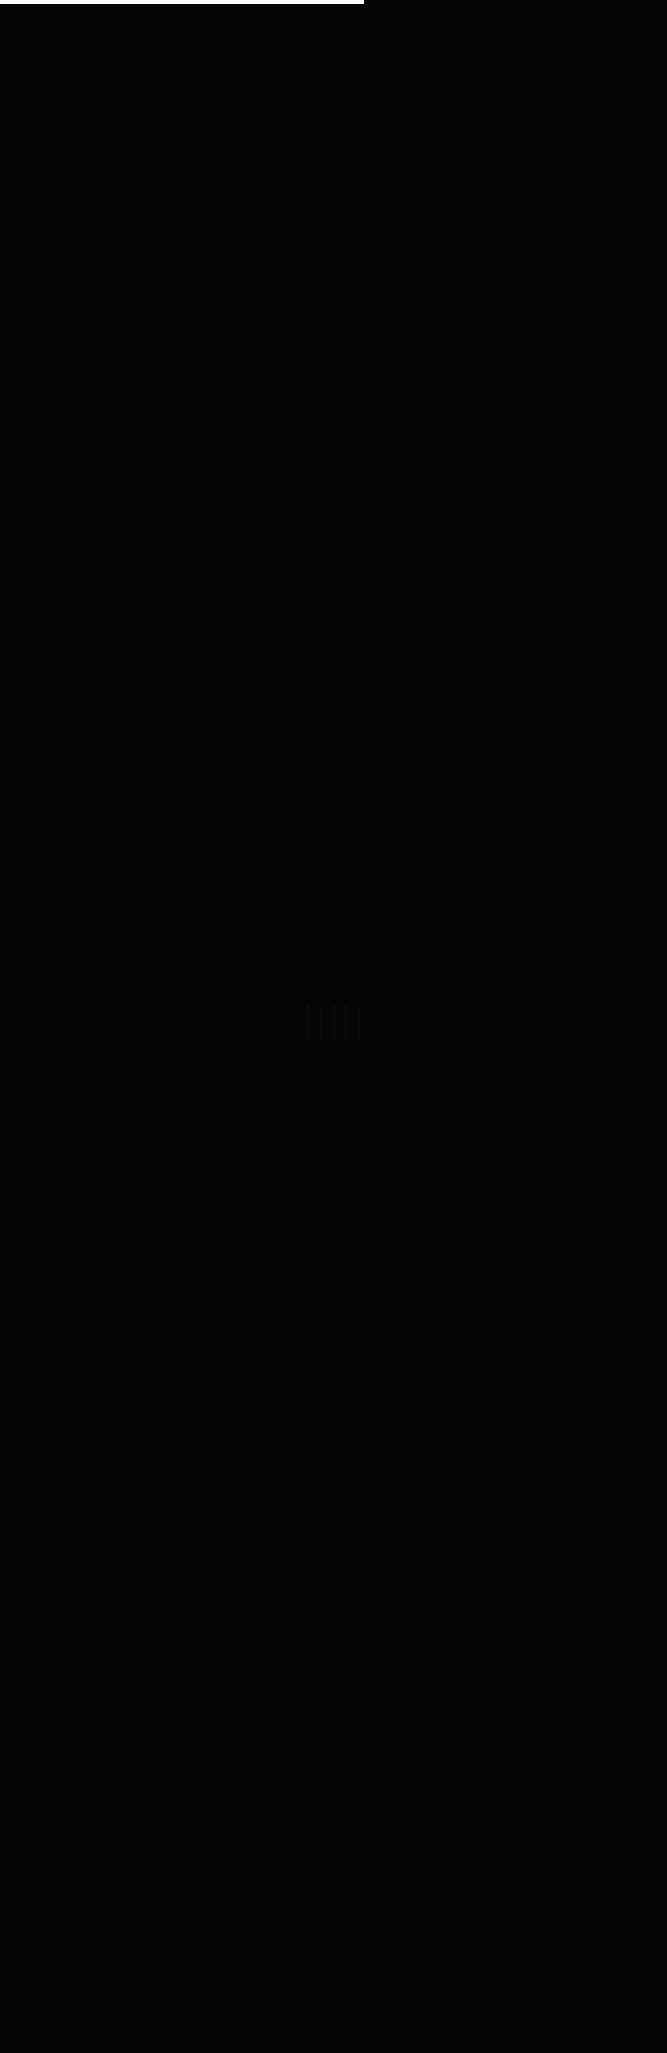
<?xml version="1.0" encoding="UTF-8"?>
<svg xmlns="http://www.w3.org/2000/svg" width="667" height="2053">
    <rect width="100%" height="100%" fill="#050505"/>
    <rect x="0" y="0" width="364" height="4" fill="#FFFFFF"/>
    <rect x="306" y="1004" width="4" height="35" rx="2" fill="#090909"/>
    <rect x="319" y="1004" width="4" height="35" rx="2" fill="#090909"/>
    <rect x="332" y="1004" width="4" height="35" rx="2" fill="#090909"/>
    <rect x="344" y="1004" width="4" height="35" rx="2" fill="#090909"/>
    <rect x="357" y="1004" width="4" height="35" rx="2" fill="#090909"/>
</svg>
